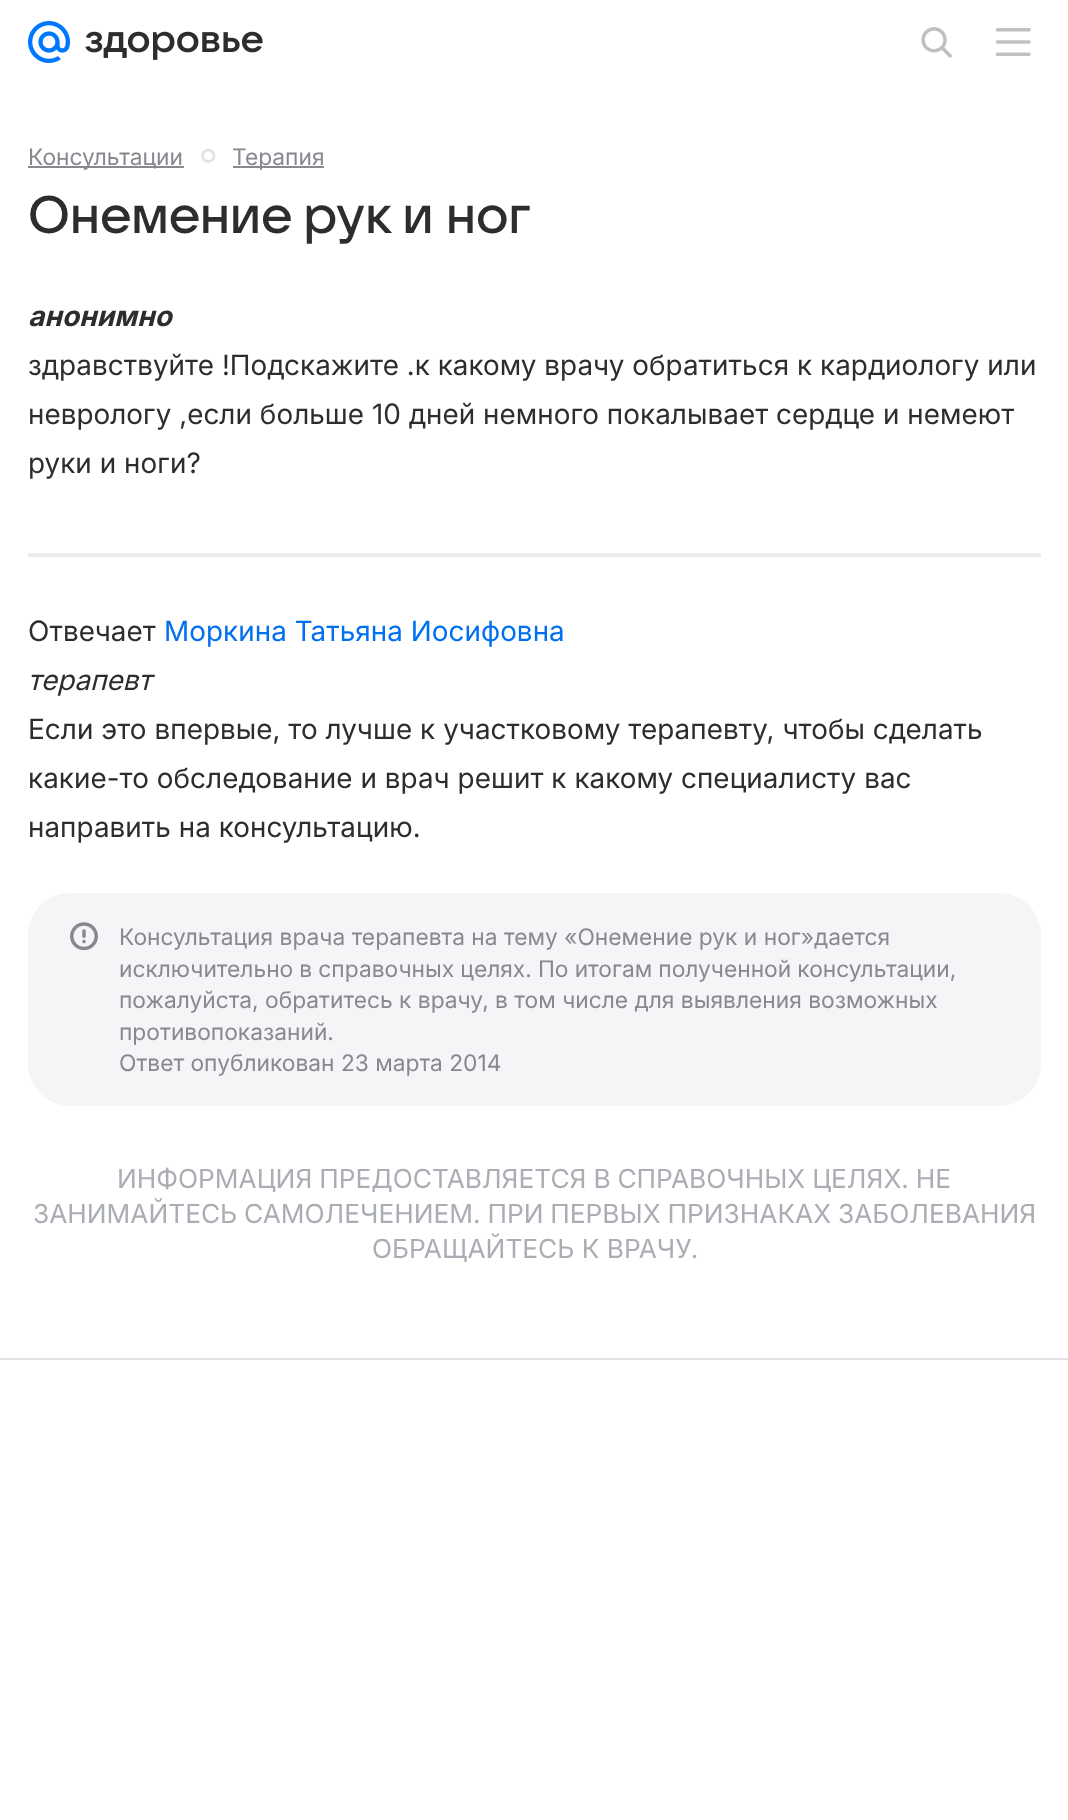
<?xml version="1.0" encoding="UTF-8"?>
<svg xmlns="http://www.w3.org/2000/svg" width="1068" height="1820">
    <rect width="100%" height="100%" fill="#FFFFFF"/>
    <image x="28" y="21" width="42" height="42" href="img_01.png"/>
    <image x="85" y="31" width="178" height="29" href="img_02.png"/>
    <image x="921" y="27" width="31" height="31" href="img_03.png"/>
    <image x="995" y="28" width="36" height="28" href="img_04.png"/>
    <rect x="28" y="166" width="156" height="2" fill="#87898F"/>
    <text x="28" y="165" font-family="'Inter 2'" font-size="22.75" fill="#87898F">Консультации</text>
    <image x="201" y="148" width="15" height="15" href="img_05.png"/>
    <rect x="233" y="166" width="91" height="2" fill="#87898F"/>
    <text x="232" y="165" font-family="'Inter 2'" font-size="22.75" fill="#87898F">Терапия</text>
    <text x="28" y="233" font-family="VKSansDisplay" font-size="52.5" font-weight="500" letter-spacing="-0.25" fill="#2C2D2E">Онемение рук и ног</text>
    <text x="28" y="326" font-family="Inter" font-size="28" font-weight="700" font-style="italic" letter-spacing="0.08" fill="#2C2D2E">анонимно</text>
    <text font-family="Inter" font-size="28" letter-spacing="0.08" fill="#2C2D2E">
        <tspan x="28" y="375">здравствуйте !Подскажите .к какому врачу обратиться к кардиологу или</tspan>
        <tspan x="28" y="424">неврологу ,если больше 10 дней немного покалывает сердце и немеют</tspan>
        <tspan x="28" y="473">руки и ноги?</tspan>
    </text>
    <rect x="28" y="553" width="1013" height="4" fill="#EBECEF"/>
    <text x="28" y="641" font-family="Inter" font-size="28" letter-spacing="0.08" fill="#2C2D2E">Отвечает</text>
    <text x="164" y="641" font-family="Inter" font-size="28" letter-spacing="0.08" fill="#0070F0">Моркина Татьяна Иосифовна</text>
    <text x="28" y="690" font-family="Inter" font-size="28" font-style="italic" letter-spacing="0.08" fill="#2C2D2E">терапевт</text>
    <text font-family="Inter" font-size="28" letter-spacing="0.08" fill="#2C2D2E">
        <tspan x="28" y="739">Если это впервые, то лучше к участковому терапевту, чтобы сделать</tspan>
        <tspan x="28" y="788">какие-то обследование и врач решит к какому специалисту вас</tspan>
        <tspan x="28" y="837">направить на консультацию.</tspan>
    </text>
    <rect x="28" y="893" width="1013" height="213" rx="42" fill="#F5F5F7"/>
    <image x="70" y="922" width="28" height="28" href="img_06.png"/>
    <text font-family="'Inter 2'" font-size="22.75" fill="#87898F">
        <tspan x="119" y="945">Консультация врача терапевта на тему «Онемение рук и ног»дается</tspan>
        <tspan x="119" y="977" word-spacing="-0.25">исключительно в справочных целях. По итогам полученной консультации,</tspan>
        <tspan x="119" y="1008">пожалуйста, обратитесь к врачу, в том числе для выявления возможных</tspan>
        <tspan x="119" y="1040">противопоказаний.</tspan>
        <tspan x="119" y="1071">Ответ опубликован 23 марта 2014</tspan>
    </text>
    <text x="117" y="1188" word-spacing="-0.5" font-family="'Inter 2'" font-size="26.25" fill="#AAADB3">ИНФОРМАЦИЯ ПРЕДОСТАВЛЯЕТСЯ В СПРАВОЧНЫХ ЦЕЛЯХ. НЕ</text>
    <text x="33" y="1223" word-spacing="-0.5" font-family="'Inter 2'" font-size="26.25" fill="#AAADB3">ЗАНИМАЙТЕСЬ САМОЛЕЧЕНИЕМ. ПРИ ПЕРВЫХ ПРИЗНАКАХ ЗАБОЛЕВАНИЯ</text>
    <text x="372" y="1258" font-family="'Inter 2'" font-size="26.25" fill="#AAADB3">ОБРАЩАЙТЕСЬ К ВРАЧУ.</text>
    <rect x="0" y="1358" width="1068" height="2" fill="#E0E2E8"/>
</svg>
